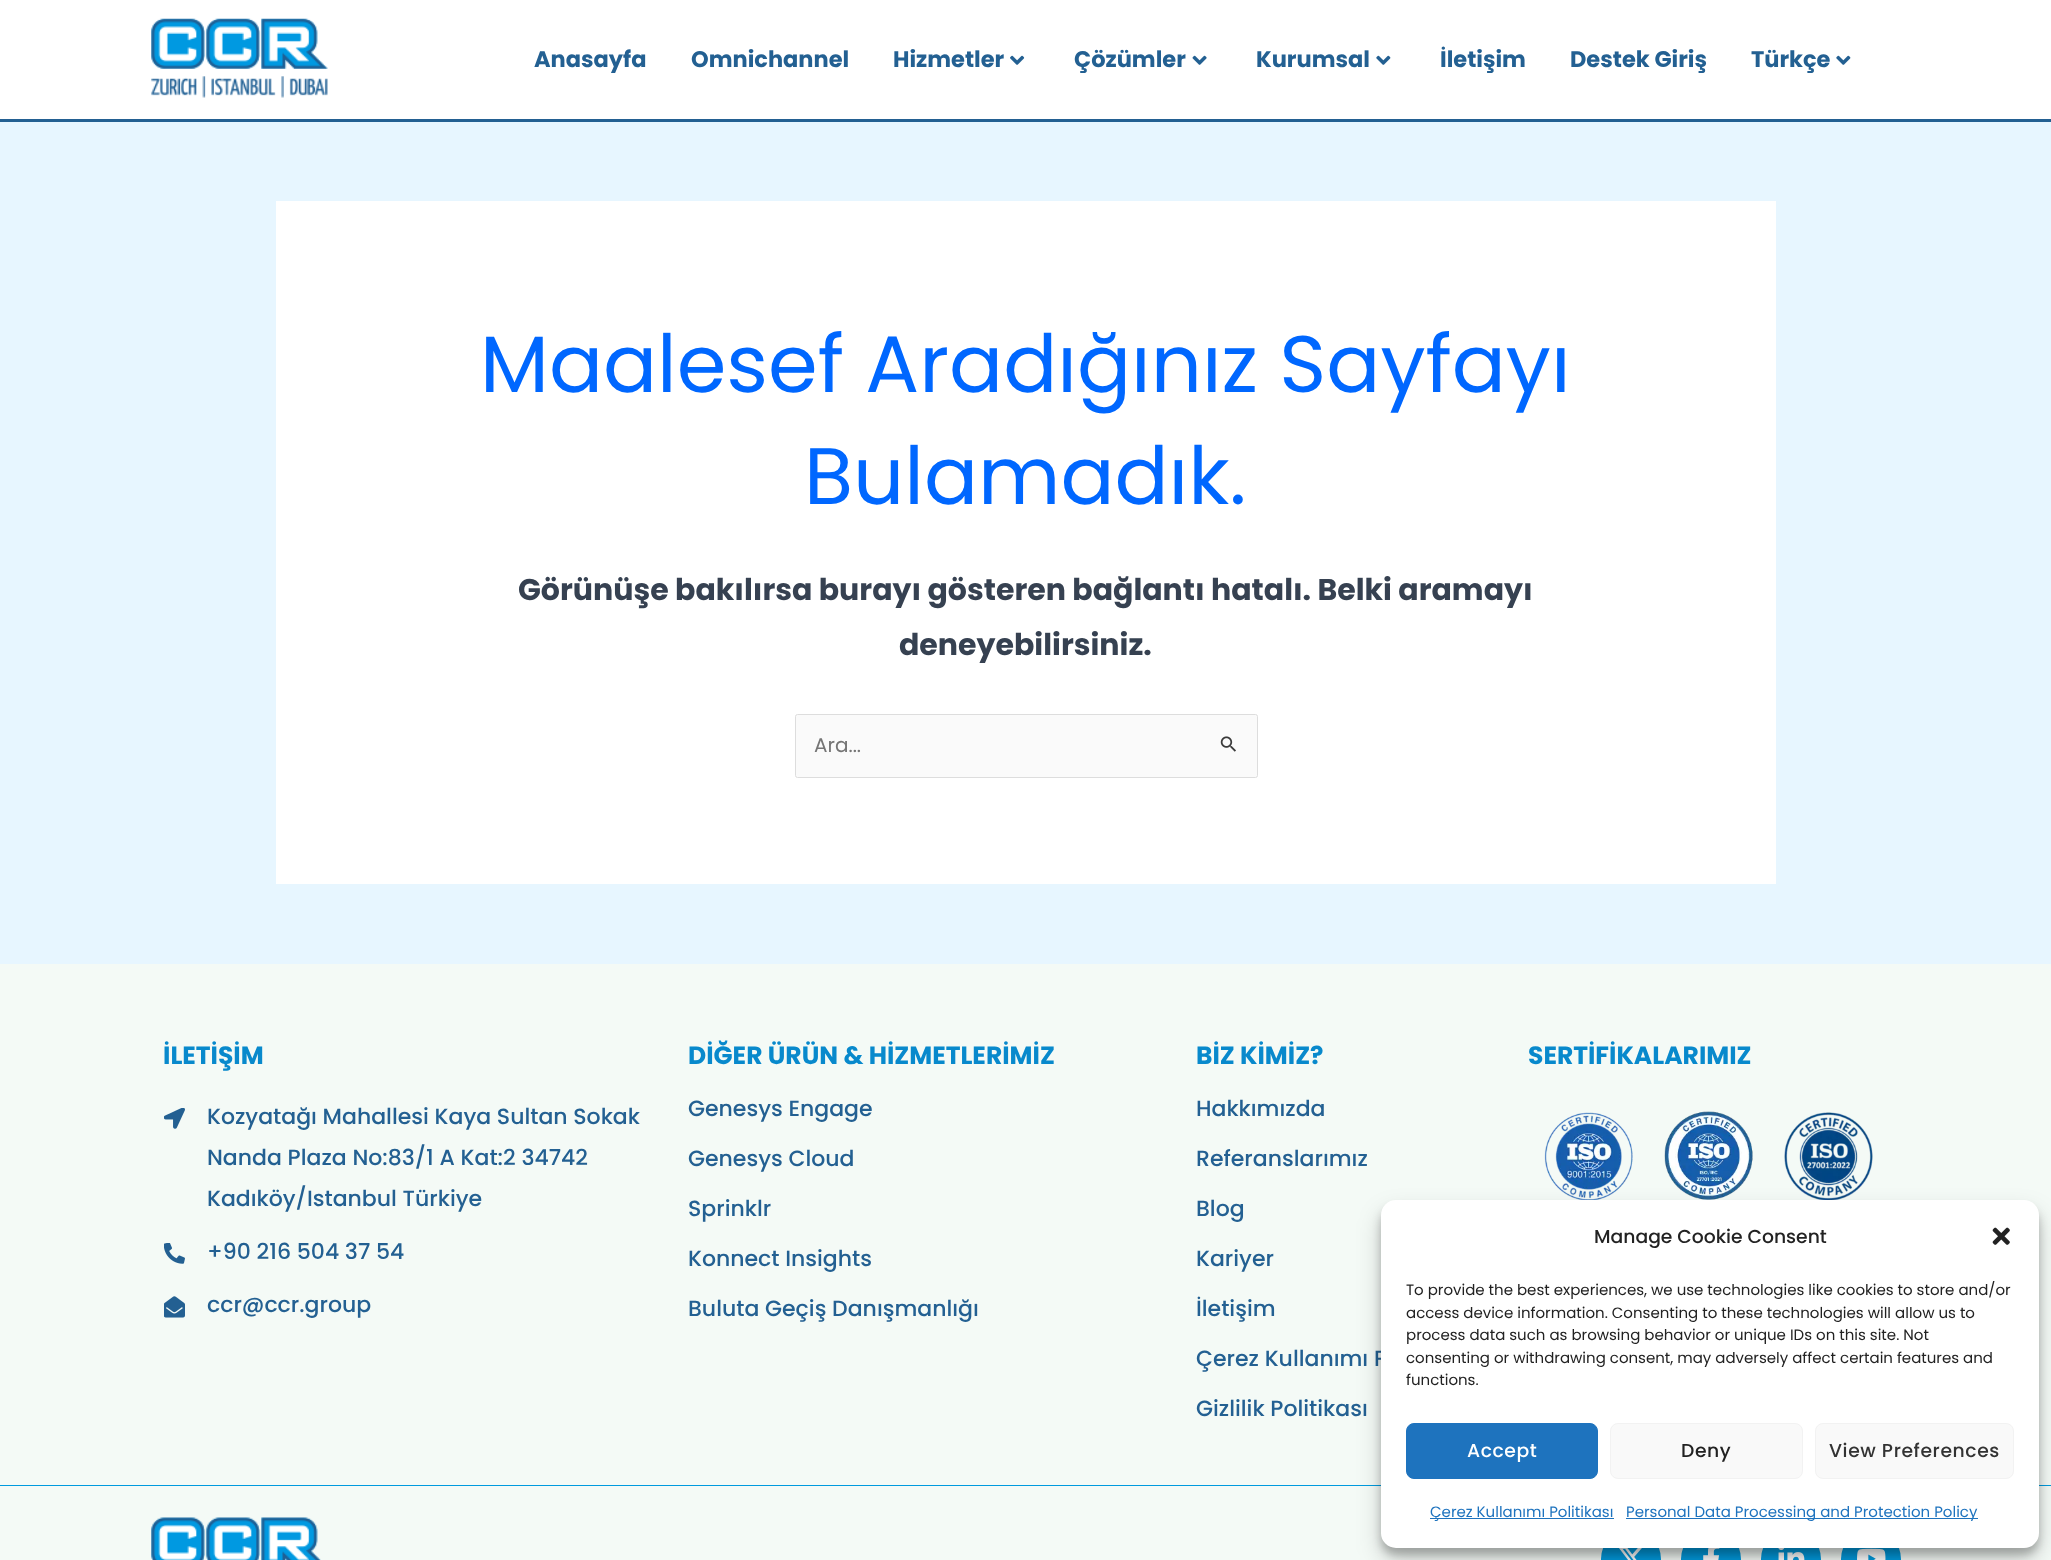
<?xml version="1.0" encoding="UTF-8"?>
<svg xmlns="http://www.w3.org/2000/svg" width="2051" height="1560">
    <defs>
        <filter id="blur1" x="-50%" y="-200%" width="200%" height="500%"><feGaussianBlur stdDeviation="4"/></filter>
        <filter id="blur2" x="-50%" y="-200%" width="200%" height="500%"><feGaussianBlur stdDeviation="12.5"/></filter>
    </defs>
    <rect width="100%" height="100%" fill="#E7F6FF"/>
    <rect x="0" y="0" width="2051" height="119" fill="#FFFFFF"/>
    <rect x="0" y="119" width="2051" height="3" fill="#236092"/>
    <image x="151" y="18" width="177" height="80" href="img_01.png"/>
    <text x="534" y="67" font-family="Poppins" font-size="22.5" font-weight="700" fill="#236092">Anasayfa</text>
    <text x="691" y="67" font-family="Poppins" font-size="22.5" font-weight="700" fill="#236092">Omnichannel</text>
    <text x="893" y="67" font-family="Poppins" font-size="22.5" font-weight="700" fill="#236092">Hizmetler</text>
    <image x="1010" y="55" width="15" height="10" href="img_02.png"/>
    <text x="1074" y="67" font-family="Poppins" font-size="22.5" font-weight="700" fill="#236092">Çözümler</text>
    <image x="1192" y="55" width="15" height="10" href="img_03.png"/>
    <text x="1256" y="67" font-family="Poppins" font-size="22.5" font-weight="700" fill="#236092">Kurumsal</text>
    <image x="1376" y="55" width="15" height="10" href="img_04.png"/>
    <text x="1440" y="67" font-family="Poppins" font-size="22.5" font-weight="700" fill="#236092">İletişim</text>
    <text x="1570" y="67" font-family="Poppins" font-size="22.5" font-weight="700" fill="#236092">Destek Giriş</text>
    <text x="1751" y="67" font-family="Poppins" font-size="22.5" font-weight="700" fill="#236092">Türkçe</text>
    <image x="1836" y="55" width="15" height="10" href="img_04.png"/>
    <rect x="276" y="201" width="1500" height="683" fill="#FFFFFF"/>
    <text x="480" y="392" font-family="Poppins" font-size="80" fill="#0067FF">Maalesef Aradığınız Sayfayı</text>
    <text x="804" y="504" font-family="Poppins" font-size="80" fill="#0067FF">Bulamadık.</text>
    <text x="518" y="600" font-family="Poppins" font-size="30" font-weight="700" fill="#364151">Görünüşe bakılırsa burayı gösteren bağlantı hatalı. Belki aramayı</text>
    <text x="899" y="655" font-family="Poppins" font-size="30" font-weight="700" fill="#364151">deneyebilirsiniz.</text>
    <rect x="795.5" y="714.5" width="462" height="63" rx="2" fill="#FAFAFA" stroke="#DDDDDD"/>
    <text x="814" y="752" font-family="Poppins" font-size="20" fill="#757575">Ara...</text>
    <image x="1220" y="736" width="16" height="16" href="img_05.png"/>
    <rect x="0" y="964" width="2051" height="596" fill="#F4FAF6"/>
    <text x="163" y="1064" font-family="Poppins" font-size="25" font-weight="700" fill="#0889CC">İLETİŞİM</text>
    <image x="164" y="1108" width="21" height="21" href="img_06.png"/>
    <text font-family="Poppins" font-size="22" font-weight="500" fill="#236092">
        <tspan x="207" y="1124">Kozyatağı Mahallesi Kaya Sultan Sokak</tspan>
        <tspan x="207" y="1165">Nanda Plaza No:83/1 A Kat:2 34742</tspan>
        <tspan x="207" y="1206">Kadıköy/Istanbul Türkiye</tspan>
    </text>
    <image x="164" y="1243" width="21" height="21" href="img_07.png"/>
    <text x="207" y="1259" font-family="Poppins" font-size="22" font-weight="500" fill="#236092">+90 216 504 37 54</text>
    <image x="164" y="1296" width="21" height="22" href="img_08.png"/>
    <text x="207" y="1312" font-family="Poppins" font-size="22" font-weight="500" fill="#236092">ccr@ccr.group</text>
    <text x="688" y="1064" font-family="Poppins" font-size="25" font-weight="700" fill="#0889CC">DİĞER ÜRÜN &amp; HİZMETLERİMİZ</text>
    <text x="688" y="1116" font-family="Poppins" font-size="22" font-weight="500" fill="#236092">Genesys Engage</text>
    <text x="688" y="1166" font-family="Poppins" font-size="22" font-weight="500" fill="#236092">Genesys Cloud</text>
    <text x="688" y="1216" font-family="Poppins" font-size="22" font-weight="500" fill="#236092">Sprinklr</text>
    <text x="688" y="1266" font-family="Poppins" font-size="22" font-weight="500" fill="#236092">Konnect Insights</text>
    <text x="688" y="1316" font-family="Poppins" font-size="22" font-weight="500" fill="#236092">Buluta Geçiş Danışmanlığı</text>
    <text x="1196" y="1064" font-family="Poppins" font-size="25" font-weight="700" fill="#0889CC">BİZ KİMİZ?</text>
    <text x="1196" y="1116" font-family="Poppins" font-size="22" font-weight="500" fill="#236092">Hakkımızda</text>
    <text x="1196" y="1166" font-family="Poppins" font-size="22" font-weight="500" fill="#236092">Referanslarımız</text>
    <text x="1196" y="1216" font-family="Poppins" font-size="22" font-weight="500" fill="#236092">Blog</text>
    <text x="1196" y="1266" font-family="Poppins" font-size="22" font-weight="500" fill="#236092">Kariyer</text>
    <text x="1196" y="1316" font-family="Poppins" font-size="22" font-weight="500" fill="#236092">İletişim</text>
    <text x="1196" y="1366" font-family="Poppins" font-size="22" font-weight="500" fill="#236092">Çerez Kullanımı P</text>
    <text x="1196" y="1416" font-family="Poppins" font-size="22" font-weight="500" fill="#236092">Gizlilik Politikası</text>
    <text x="1528" y="1064" font-family="Poppins" font-size="25" font-weight="700" fill="#0889CC">SERTİFİKALARIMIZ</text>
    <image x="1544" y="1112" width="89" height="88" href="img_09.png"/>
    <image x="1664" y="1111" width="89" height="89" href="img_10.png"/>
    <image x="1784" y="1112" width="89" height="88" href="img_11.png"/>
    <rect x="0" y="1485" width="2051" height="1" fill="#009ADE"/>
    <image x="151" y="1517" width="170" height="43" href="img_12.png"/>
    <circle cx="1631" cy="1559" r="30" fill="#009ADE"/>
    <image x="1619" y="1548" width="23" height="12" href="img_13.png"/>
    <circle cx="1711" cy="1559" r="30" fill="#009ADE"/>
    <image x="1703" y="1548" width="17" height="12" href="img_14.png"/>
    <circle cx="1791" cy="1559" r="30" fill="#009ADE"/>
    <image x="1778" y="1548" width="27" height="12" href="img_15.png"/>
    <circle cx="1871" cy="1559" r="30" fill="#009ADE"/>
    <image x="1857" y="1548" width="29" height="12" href="img_16.png"/>
    <rect x="1381" y="1208" width="658" height="347" rx="15" fill="#000000" fill-opacity="0.23" filter="url(#blur1)"/>
    <rect x="1381" y="1213" width="658" height="347" rx="15" fill="#000000" fill-opacity="0.19" filter="url(#blur2)"/>
    <rect x="1381" y="1200" width="658" height="348" rx="15" fill="#FFFFFF"/>
    <text x="1594" y="1243" font-family="Poppins" font-size="18.75" font-weight="500" fill="#222222">Manage Cookie Consent</text>
    <image x="1992" y="1227" width="18" height="18" href="img_17.png"/>
    <text font-family="Poppins" font-size="15" fill="#222222">
        <tspan x="1406" y="1295">To provide the best experiences, we use technologies like cookies to store and/or</tspan>
        <tspan x="1406" y="1318">access device information. Consenting to these technologies will allow us to</tspan>
        <tspan x="1406" y="1340">process data such as browsing behavior or unique IDs on this site. Not</tspan>
        <tspan x="1406" y="1363">consenting or withdrawing consent, may adversely affect certain features and</tspan>
        <tspan x="1406" y="1385">functions.</tspan>
    </text>
    <rect x="1406.5" y="1423.5" width="191" height="55" rx="7.5" fill="#1E73BE" stroke="#1E73BE"/>
    <text x="1467" y="1457" font-family="Poppins" font-size="18.75" font-weight="500" letter-spacing="0.6" fill="#FFFFFF">Accept</text>
    <rect x="1610.5" y="1423.5" width="192" height="55" rx="7.5" fill="#F9F9F9" stroke="#F2F2F2"/>
    <text x="1681" y="1457" font-family="Poppins" font-size="18.75" font-weight="500" letter-spacing="0.6" fill="#222222">Deny</text>
    <rect x="1815.5" y="1423.5" width="198" height="55" rx="7.5" fill="#F9F9F9" stroke="#F2F2F2"/>
    <text x="1829" y="1457" font-family="Poppins" font-size="18.75" font-weight="500" letter-spacing="0.6" fill="#333333">View Preferences</text>
    <rect x="1430" y="1518" width="184" height="1" fill="#1E73BE"/>
    <text x="1430" y="1517" font-family="Poppins" font-size="15" fill="#1E73BE">Çerez Kullanımı Politikası</text>
    <rect x="1626" y="1518" width="352" height="1" fill="#1E73BE"/>
    <text x="1626" y="1517" font-family="Poppins" font-size="15" fill="#1E73BE">Personal Data Processing and Protection Policy</text>
</svg>
